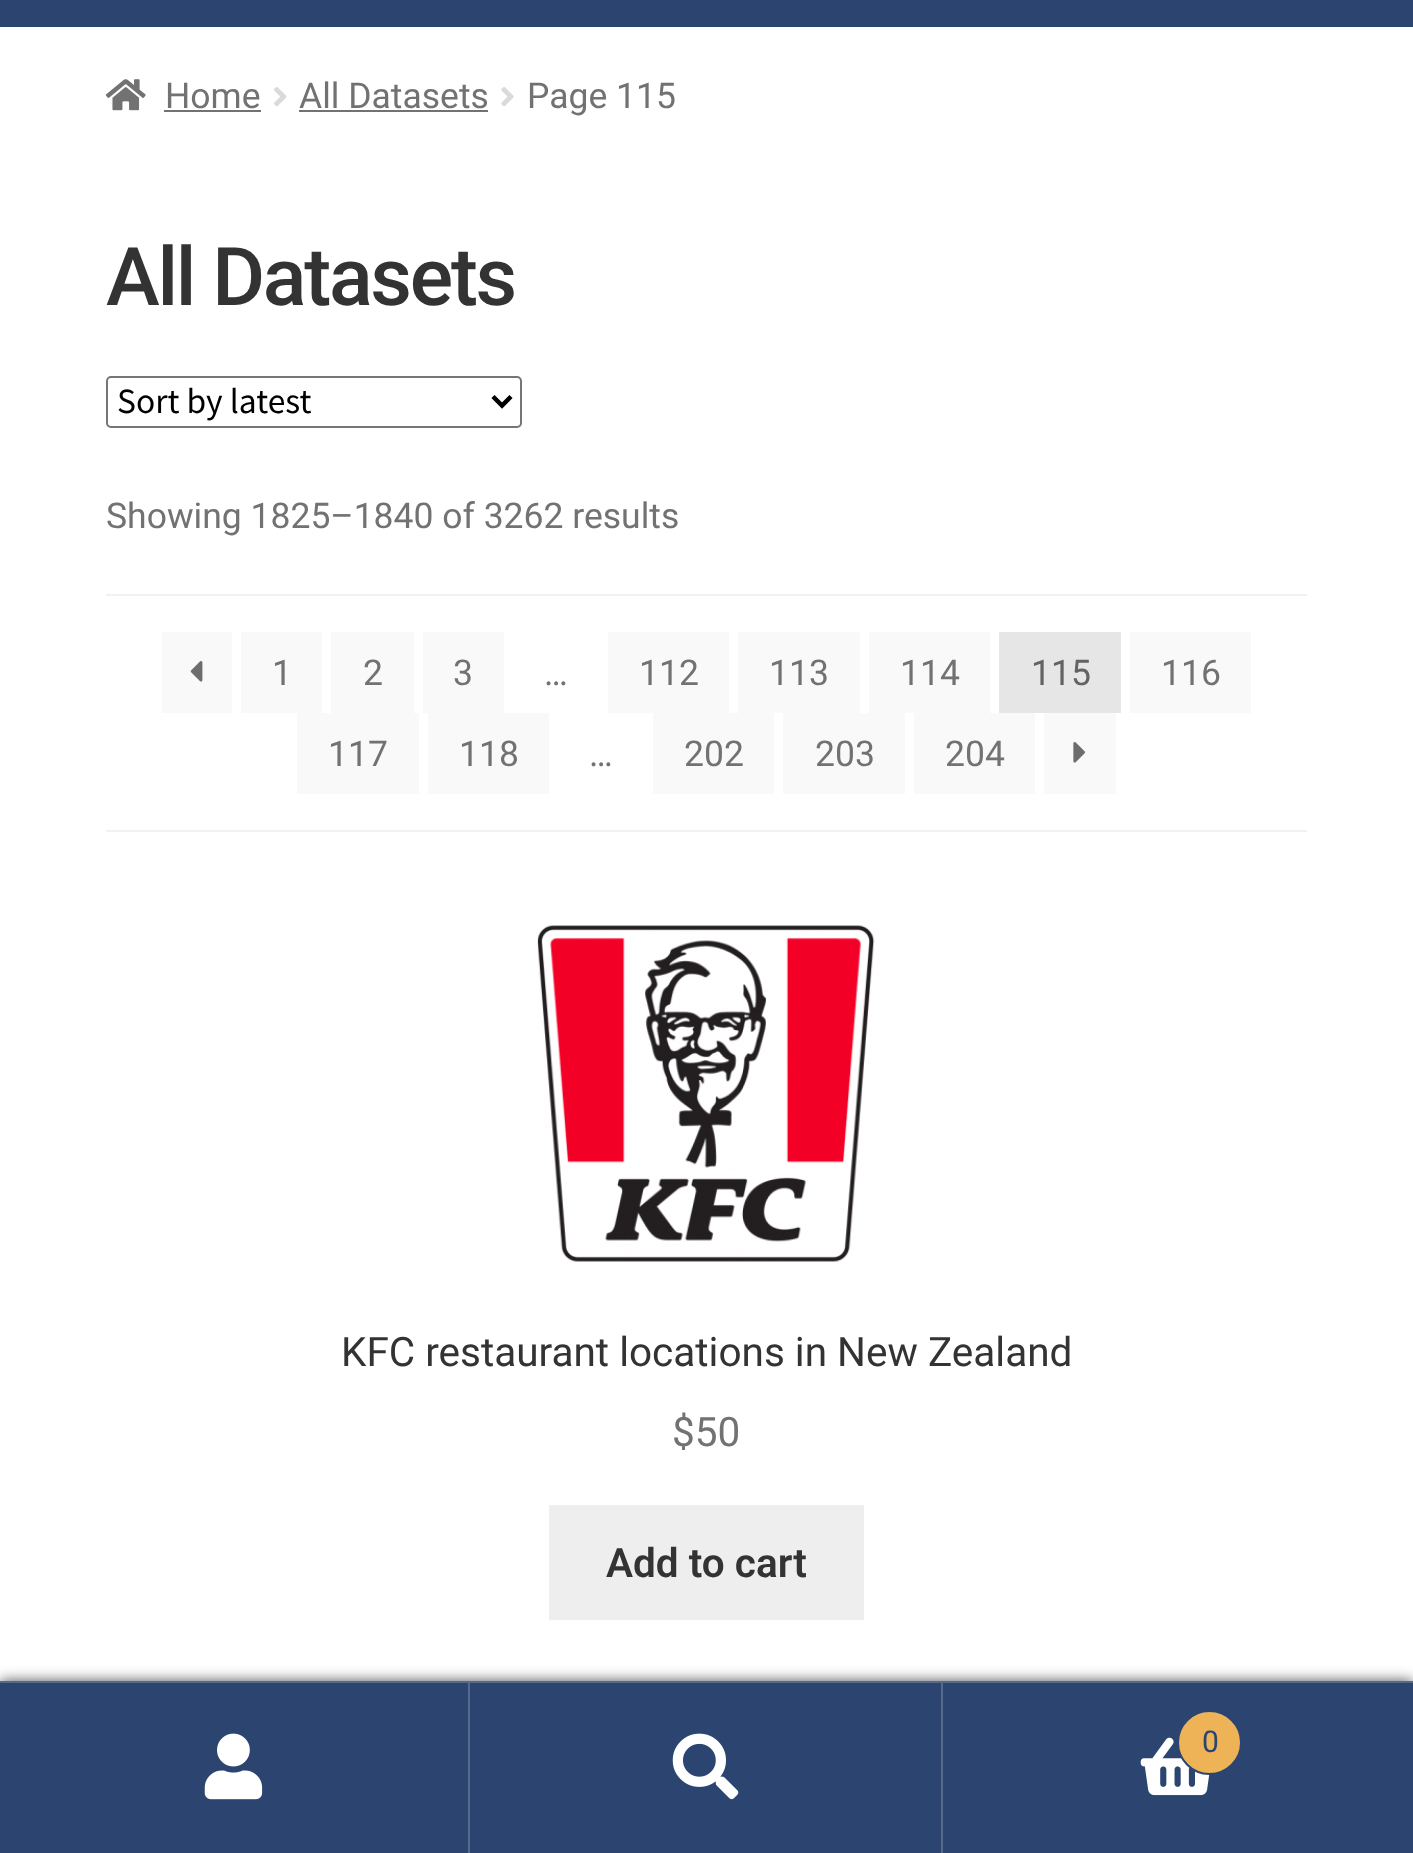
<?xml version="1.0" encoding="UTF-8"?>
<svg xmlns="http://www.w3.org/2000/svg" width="1413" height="1853">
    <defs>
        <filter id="blur1" x="-50%" y="-200%" width="200%" height="500%"><feGaussianBlur stdDeviation="7"/></filter>
    </defs>
    <rect width="100%" height="100%" fill="#FFFFFF"/>
    <rect x="0" y="0" width="1413" height="27" fill="#2B4570"/>
    <image x="105" y="79" width="41" height="32" href="img_01.png"/>
    <text x="165" y="108" font-family="Roboto" font-size="35.5" fill="#727272">Home</text>
    <rect x="164" y="110" width="97" height="2" fill="#727272"/>
    <image x="274" y="87" width="13" height="20" href="img_02.png"/>
    <text x="299" y="108" font-family="Roboto" font-size="35.5" fill="#727272">All Datasets</text>
    <rect x="299" y="110" width="189" height="2" fill="#727272"/>
    <image x="501" y="87" width="13" height="20" href="img_03.png"/>
    <text x="527" y="108" font-family="Roboto" font-size="35.5" fill="#727272">Page 115</text>
    <text x="106" y="305" font-family="Roboto" font-size="81" font-weight="500" letter-spacing="-2.25" fill="#333333">All Datasets</text>
    <rect x="107" y="377" width="414" height="50" rx="4" fill="none" stroke="#767676" stroke-width="2"/>
    <path d="M 493 396.5 L 502 405.5 L 511 396.5" fill="none" stroke="#000000" stroke-width="4.5"/>
    <text x="117" y="413" font-family="Source Sans Pro" font-size="35.5" fill="#000000">Sort by latest</text>
    <text x="106" y="528" font-family="Roboto" font-size="35.5" fill="#727272">Showing 1825–1840 of 3262 results</text>
    <rect x="106" y="594" width="1201" height="2" fill="#F2F2F2"/>
    <rect x="106" y="830" width="1201" height="2" fill="#F2F2F2"/>
    <rect x="162" y="632" width="70" height="81" fill="#F9F9F9"/>
    <image x="190" y="661" width="13" height="21" href="img_04.png"/>
    <rect x="241" y="632" width="81" height="81" fill="#F9F9F9"/>
    <text x="272" y="685" font-family="Roboto" font-size="35.5" fill="#727272">1</text>
    <rect x="331" y="632" width="83" height="81" fill="#F9F9F9"/>
    <text x="363" y="685" font-family="Roboto" font-size="35.5" fill="#727272">2</text>
    <rect x="423" y="632" width="81" height="81" fill="#F9F9F9"/>
    <text x="453" y="685" font-family="Roboto" font-size="35.5" fill="#727272">3</text>
    <text x="544" y="685" font-family="Roboto" font-size="35.5" fill="#727272">…</text>
    <rect x="608" y="632" width="121" height="81" fill="#F9F9F9"/>
    <text x="639" y="685" font-family="Roboto" font-size="35.5" fill="#727272">112</text>
    <rect x="738" y="632" width="122" height="81" fill="#F9F9F9"/>
    <text x="769" y="685" font-family="Roboto" font-size="35.5" fill="#727272">113</text>
    <rect x="869" y="632" width="121" height="81" fill="#F9F9F9"/>
    <text x="900" y="685" font-family="Roboto" font-size="35.5" fill="#727272">114</text>
    <rect x="999" y="632" width="122" height="81" fill="#E6E6E6"/>
    <text x="1031" y="685" font-family="Roboto" font-size="35.5" fill="#636363">115</text>
    <rect x="1130" y="632" width="121" height="81" fill="#F9F9F9"/>
    <text x="1161" y="685" font-family="Roboto" font-size="35.5" fill="#727272">116</text>
    <rect x="297" y="713" width="122" height="81" fill="#F9F9F9"/>
    <text x="328" y="766" font-family="Roboto" font-size="35.5" fill="#727272">117</text>
    <rect x="428" y="713" width="121" height="81" fill="#F9F9F9"/>
    <text x="459" y="766" font-family="Roboto" font-size="35.5" fill="#727272">118</text>
    <text x="589" y="766" font-family="Roboto" font-size="35.5" fill="#727272">…</text>
    <rect x="653" y="713" width="121" height="81" fill="#F9F9F9"/>
    <text x="684" y="766" font-family="Roboto" font-size="35.5" fill="#727272">202</text>
    <rect x="783" y="713" width="122" height="81" fill="#F9F9F9"/>
    <text x="815" y="766" font-family="Roboto" font-size="35.5" fill="#727272">203</text>
    <rect x="914" y="713" width="121" height="81" fill="#F9F9F9"/>
    <text x="945" y="766" font-family="Roboto" font-size="35.5" fill="#727272">204</text>
    <rect x="1044" y="713" width="72" height="81" fill="#F9F9F9"/>
    <image x="1073" y="742" width="12" height="21" href="img_05.png"/>
    <image x="537" y="925" width="338" height="337" href="img_06.png"/>
    <text x="341" y="1366" font-family="Roboto" font-size="40.5" fill="#333333">KFC restaurant locations in New Zealand</text>
    <text x="672" y="1446" font-family="Roboto" font-size="40.5" fill="#727272">$50</text>
    <rect x="549" y="1505" width="315" height="115" fill="#EEEEEE"/>
    <text x="606" y="1577" font-family="Roboto" font-size="40.5" font-weight="600" fill="#333333">Add to cart</text>
    <rect x="0" y="1681" width="1413" height="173" fill="#000000" fill-opacity="0.7" filter="url(#blur1)"/>
    <rect x="0" y="1683" width="1413" height="170" fill="#2B4570"/>
    <rect x="0" y="1681" width="1413" height="2" fill="#556A8D"/>
    <rect x="468" y="1683" width="2" height="170" fill="#556A8D"/>
    <image x="204" y="1733" width="59" height="67" href="img_07.png"/>
    <rect x="941" y="1683" width="2" height="170" fill="#556A8D"/>
    <image x="672" y="1733" width="67" height="67" href="img_08.png"/>
    <image x="1140" y="1737" width="70" height="59" href="img_09.png"/>
    <circle cx="1209.5" cy="1742.5" r="31.5" fill="#EEB357" stroke="#2B4570" stroke-width="2"/>
    <text x="1202" y="1752" font-family="Roboto" font-size="30" fill="#2B4570">0</text>
</svg>
